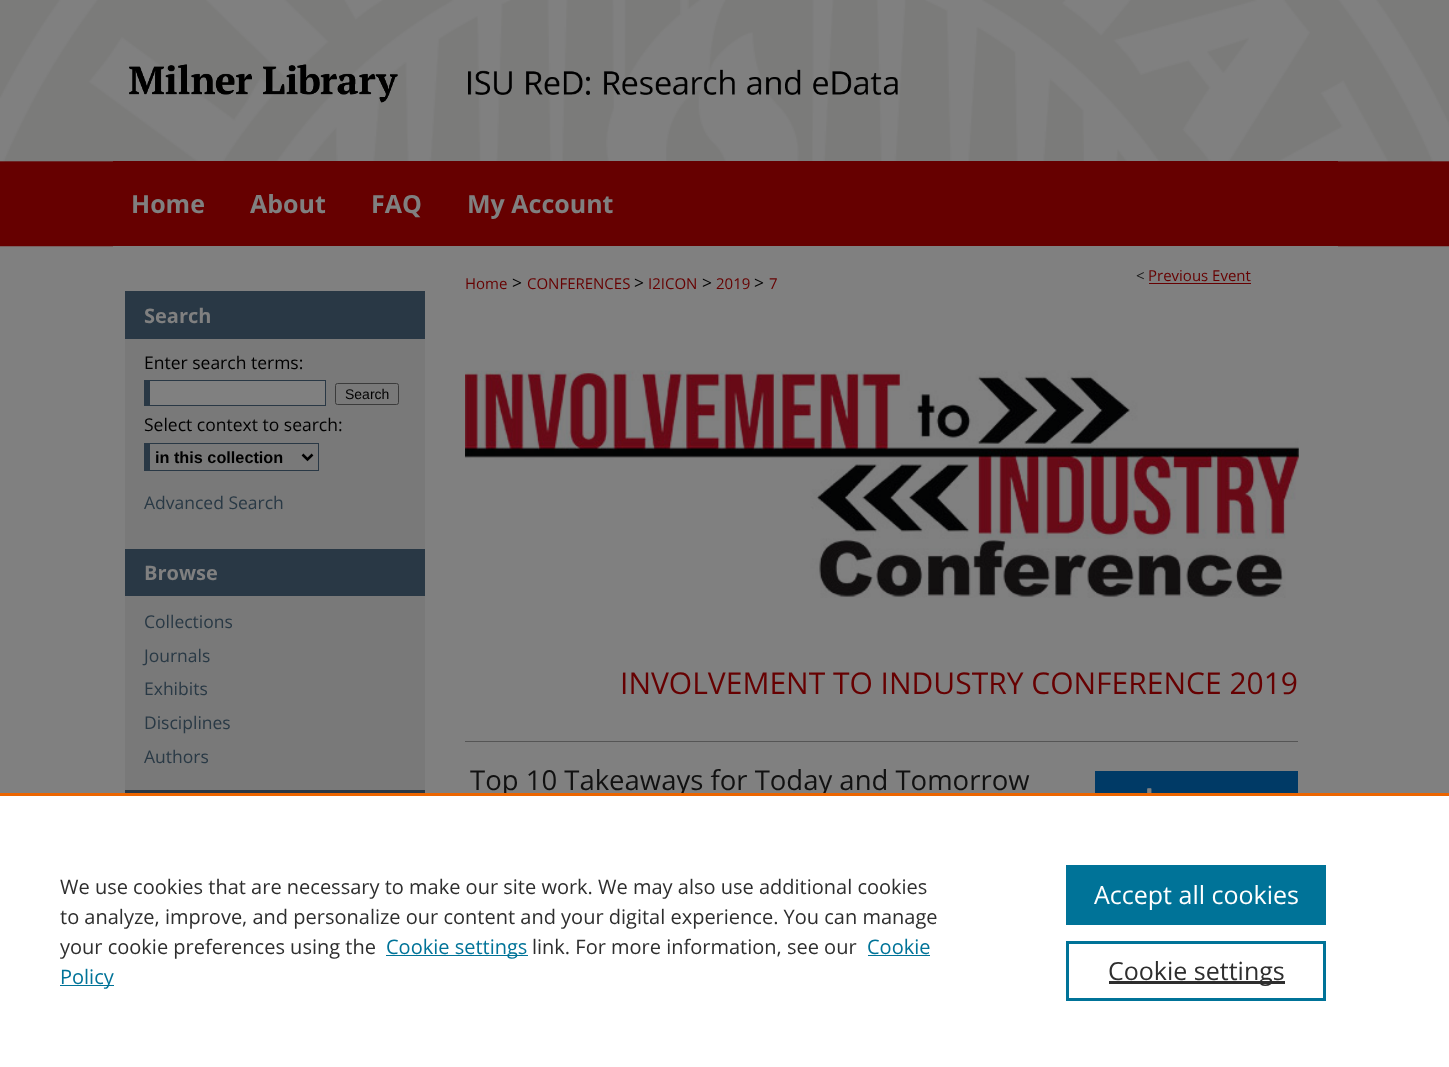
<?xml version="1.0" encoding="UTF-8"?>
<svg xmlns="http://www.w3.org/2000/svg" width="1449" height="1067">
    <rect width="100%" height="100%" fill="#808080"/>
    <image x="0" y="0" width="1449" height="247" href="img_01.png"/>
    <image x="129" y="64" width="769" height="39" href="img_02.png"/>
    <image x="129" y="64" width="269" height="39" href="img_03.png"/>
    <rect x="113" y="161" width="1225" height="1" fill="#660001"/>
    <text x="131" y="213" font-family="Open Sans" font-size="25" font-weight="700" fill="#808080">Home</text>
    <text x="250" y="213" font-family="Open Sans" font-size="25" font-weight="700" fill="#808080">About</text>
    <text x="371" y="213" font-family="Open Sans" font-size="25" font-weight="700" fill="#808080">FAQ</text>
    <text x="467" y="213" font-family="Open Sans" font-size="25" font-weight="700" fill="#808080">My Account</text>
    <rect x="113" y="246" width="1225" height="1" fill="#808080"/>
    <rect x="125" y="339" width="300" height="451" fill="#797979"/>
    <rect x="125" y="291" width="300" height="48" fill="#293845"/>
    <text x="144" y="323" font-family="Open Sans" font-size="20" font-weight="700" fill="#808080">Search</text>
    <text x="144" y="369" font-family="Open Sans" font-size="17.5" fill="#000000">Enter search terms:</text>
    <rect x="150" y="381" width="175" height="24" fill="#808080"/>
    <rect x="144" y="380" width="182" height="1" fill="#293845"/>
    <rect x="325" y="380" width="1" height="26" fill="#293845"/>
    <rect x="144" y="405" width="182" height="1" fill="#293845"/>
    <rect x="144" y="380" width="6" height="26" fill="#293845"/>
    <rect x="335.5" y="383.5" width="63" height="21" rx="2" fill="none" stroke="#3B3B3B"/>
    <text x="345" y="399" font-family="Liberation Sans" font-size="14" fill="#000000">Search</text>
    <text x="144" y="431" font-family="Open Sans" font-size="17.5" fill="#000000">Select context to search:</text>
    <rect x="144" y="443" width="175" height="1" fill="#293845"/>
    <rect x="318" y="443" width="1" height="28" fill="#293845"/>
    <rect x="144" y="470" width="175" height="1" fill="#293845"/>
    <rect x="144" y="443" width="6" height="28" fill="#293845"/>
    <path d="M 302.5 454.5 L 307.5 459.5 L 312.5 454.5" fill="none" stroke="#000000" stroke-width="2.5"/>
    <text x="155" y="463" font-family="Liberation Sans" font-size="16.25" font-weight="700" fill="#000000">in this collection</text>
    <text x="144" y="509" font-family="Open Sans" font-size="17.5" fill="#293945">Advanced Search</text>
    <rect x="125" y="549" width="300" height="47" fill="#293845"/>
    <text x="144" y="580" font-family="Open Sans" font-size="20" font-weight="700" fill="#808080">Browse</text>
    <text font-family="Open Sans" font-size="17.5" fill="#293945">
        <tspan x="144" y="628">Collections</tspan>
        <tspan x="144" y="662">Journals</tspan>
        <tspan x="144" y="695">Exhibits</tspan>
        <tspan x="144" y="729">Disciplines</tspan>
        <tspan x="144" y="763">Authors</tspan>
    </text>
    <rect x="125" y="790" width="300" height="3" fill="#293845"/>
    <text x="1136" y="281" font-family="Open Sans" font-size="15" fill="#111111">&lt;</text>
    <text x="1148" y="281" font-family="Open Sans" font-size="15" fill="#660001">Previous Event</text>
    <rect x="1149" y="283" width="102" height="1" fill="#660001"/>
    <text x="465" y="289" font-family="Open Sans" font-size="15" fill="#660001">Home</text>
    <text x="512" y="289" font-family="Open Sans" font-size="17.5" fill="#000000">&gt;</text>
    <text x="527" y="289" font-family="Open Sans" font-size="15" fill="#660001">CONFERENCES</text>
    <text x="634" y="289" font-family="Open Sans" font-size="17.5" fill="#000000">&gt;</text>
    <text x="648" y="289" font-family="Open Sans" font-size="15" fill="#660001">I2ICON</text>
    <text x="702" y="289" font-family="Open Sans" font-size="17.5" fill="#000000">&gt;</text>
    <text x="716" y="289" font-family="Open Sans" font-size="15" fill="#660001">2019</text>
    <text x="754" y="289" font-family="Open Sans" font-size="17.5" fill="#000000">&gt;</text>
    <text x="769" y="289" font-family="Open Sans" font-size="15" fill="#660001">7</text>
    <image x="465" y="370" width="834" height="228" href="img_04.png"/>
    <text x="620" y="694" font-family="Open Sans" font-size="30" fill="#660001">INVOLVEMENT TO INDUSTRY CONFERENCE 2019</text>
    <rect x="465" y="741" width="833" height="1" fill="#555555"/>
    <text x="470" y="790" font-family="Open Sans" font-size="27.5" fill="#111111">Top 10 Takeaways for Today and Tomorrow</text>
    <rect x="1095" y="771" width="203" height="22" fill="#003A66"/>
    <image x="1147" y="788" width="5" height="5" href="img_05.png"/>
    <rect x="0" y="796" width="1449" height="271" fill="#FFFFFF"/>
    <rect x="0" y="793" width="1449" height="3" fill="#EB6500"/>
    <text font-family="Open Sans" font-size="20" fill="#2E2E2E">
        <tspan x="60" y="894">We use cookies that are necessary to make our site work. We may also use additional cookies</tspan>
        <tspan x="60" y="924">to analyze, improve, and personalize our content and your digital experience. You can manage</tspan>
        <tspan x="60" y="954">your cookie preferences using the</tspan>
    </text>
    <rect x="386" y="955" width="142" height="1" fill="#007398"/>
    <text x="386" y="954" font-family="Open Sans" font-size="20" fill="#007398">Cookie settings</text>
    <text x="532" y="954" font-family="Open Sans" font-size="20" fill="#2E2E2E">link. For more information, see our</text>
    <text x="867" y="954" font-family="Open Sans" font-size="20" fill="#007398">Cookie</text>
    <rect x="868" y="955" width="62" height="1" fill="#007398"/>
    <rect x="60" y="985" width="54" height="1" fill="#007398"/>
    <text x="60" y="984" font-family="Open Sans" font-size="20" fill="#007398">Policy</text>
    <rect x="1066" y="865" width="260" height="60" fill="#007398"/>
    <text x="1094" y="904" font-family="Open Sans" font-size="25" fill="#FFFFFF">Accept all cookies</text>
    <rect x="1067.5" y="942.5" width="257" height="57" fill="none" stroke="#007398" stroke-width="3"/>
    <rect x="1109" y="981" width="176" height="3" fill="#2E2E2E"/>
    <text x="1108" y="980" font-family="Open Sans" font-size="25" fill="#2E2E2E">Cookie settings</text>
</svg>
